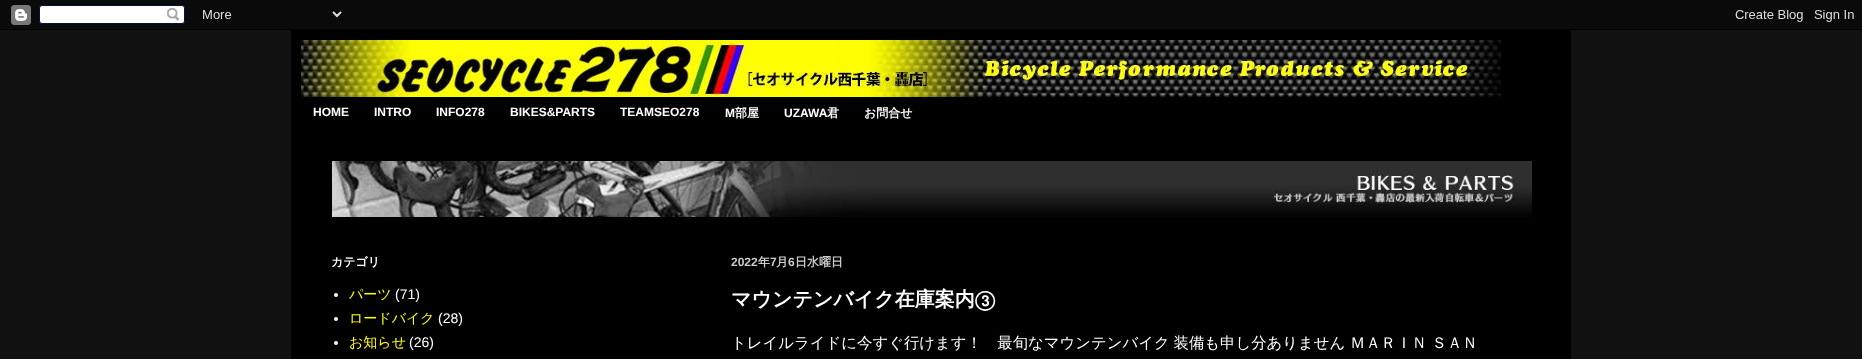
<?xml version="1.0" encoding="UTF-8"?>
<svg xmlns="http://www.w3.org/2000/svg" width="1862" height="359">
    <rect width="100%" height="100%" fill="#111111"/>
    <image x="0" y="0" width="1862" height="30" href="img_01.png"/>
    <rect x="291" y="30" width="1280" height="329" fill="#000000"/>
    <image x="301" y="40" width="1200" height="57" href="img_02.png"/>
    <text x="313" y="116" font-family="Liberation Sans" font-size="12" font-weight="700" fill="#FFFFFF">HOME</text>
    <text x="374" y="116" font-family="Liberation Sans" font-size="12" font-weight="700" fill="#FFFFFF">INTRO</text>
    <text x="436" y="116" font-family="Liberation Sans" font-size="12" font-weight="700" fill="#FFFFFF">INFO278</text>
    <text x="510" y="116" font-family="Liberation Sans" font-size="12" font-weight="700" fill="#FFFFFF">BIKES&amp;PARTS</text>
    <text x="620" y="116" font-family="Liberation Sans" font-size="12" font-weight="700" fill="#FFFFFF">TEAMSEO278</text>
    <text x="725" y="117" font-family="Liberation Sans" font-size="12" font-weight="700" fill="#FFFFFF">M</text>
    <text x="735" y="117" font-family="WenQuanYi Zen Hei" font-size="12" font-weight="700" fill="#FFFFFF">部屋</text>
    <text x="784" y="117" font-family="Liberation Sans" font-size="12" font-weight="700" fill="#FFFFFF">UZAWA</text>
    <text x="827" y="117" font-family="WenQuanYi Zen Hei" font-size="12" font-weight="700" fill="#FFFFFF">君</text>
    <text x="864" y="117" font-family="WenQuanYi Zen Hei" font-size="12" font-weight="700" fill="#FFFFFF">お問合せ</text>
    <image x="332" y="161" width="1200" height="56" href="img_03.png"/>
    <text x="331" y="266" font-family="WenQuanYi Zen Hei" font-size="12" font-weight="700" fill="#FFFFFF">カテゴリ</text>
    <circle cx="336" cy="295" r="2" fill="#FFFFFF"/>
    <text x="349" y="299" font-family="WenQuanYi Zen Hei" font-size="14" font-weight="500" fill="#FFFF00">パーツ</text>
    <text x="395" y="299" font-family="Liberation Sans" font-size="14" fill="#FFFFFF">(71)</text>
    <circle cx="336" cy="319" r="2" fill="#FFFFFF"/>
    <text x="349" y="323" font-family="WenQuanYi Zen Hei" font-size="14" font-weight="500" fill="#FFFF00">ロードバイク</text>
    <text x="438" y="323" font-family="Liberation Sans" font-size="14" fill="#FFFFFF">(28)</text>
    <circle cx="336" cy="343" r="2" fill="#FFFFFF"/>
    <text x="349" y="347" font-family="WenQuanYi Zen Hei" font-size="14" font-weight="500" fill="#FFFF00">お知らせ</text>
    <text x="409" y="347" font-family="Liberation Sans" font-size="14" fill="#FFFFFF">(26)</text>
    <text x="731" y="266" font-family="Liberation Sans" font-size="12" font-weight="700" fill="#CCCCCC">2022</text>
    <text x="758" y="266" font-family="WenQuanYi Zen Hei" font-size="12" font-weight="700" fill="#CCCCCC">年</text>
    <text x="770" y="266" font-family="Liberation Sans" font-size="12" font-weight="700" fill="#CCCCCC">7</text>
    <text x="776" y="266" font-family="WenQuanYi Zen Hei" font-size="12" font-weight="700" fill="#CCCCCC">月</text>
    <text x="788" y="266" font-family="Liberation Sans" font-size="12" font-weight="700" fill="#CCCCCC">6</text>
    <text x="795" y="266" font-family="WenQuanYi Zen Hei" font-size="12" font-weight="700" fill="#CCCCCC">日水曜日</text>
    <text x="731" y="306" font-family="WenQuanYi Zen Hei" font-size="20" font-weight="700" fill="#FFFFFF">マウンテンバイク在庫案内</text>
    <text x="975" y="306" font-family="FreeSans" font-size="20" font-weight="600" fill="#FFFFFF">③</text>
    <text x="731" y="348" word-spacing="-1" font-family="WenQuanYi Zen Hei" font-size="15.4" font-weight="500" fill="#FFFFFF">トレイルライドに今すぐ行けます！　最旬なマウンテンバイク 装備も申し分ありません</text>
    <text x="1350" y="348" font-family="WenQuanYi Zen Hei" font-size="15.4" font-weight="500" fill="#FFFFFF">ＭＡＲＩＮ ＳＡＮ</text>
</svg>
